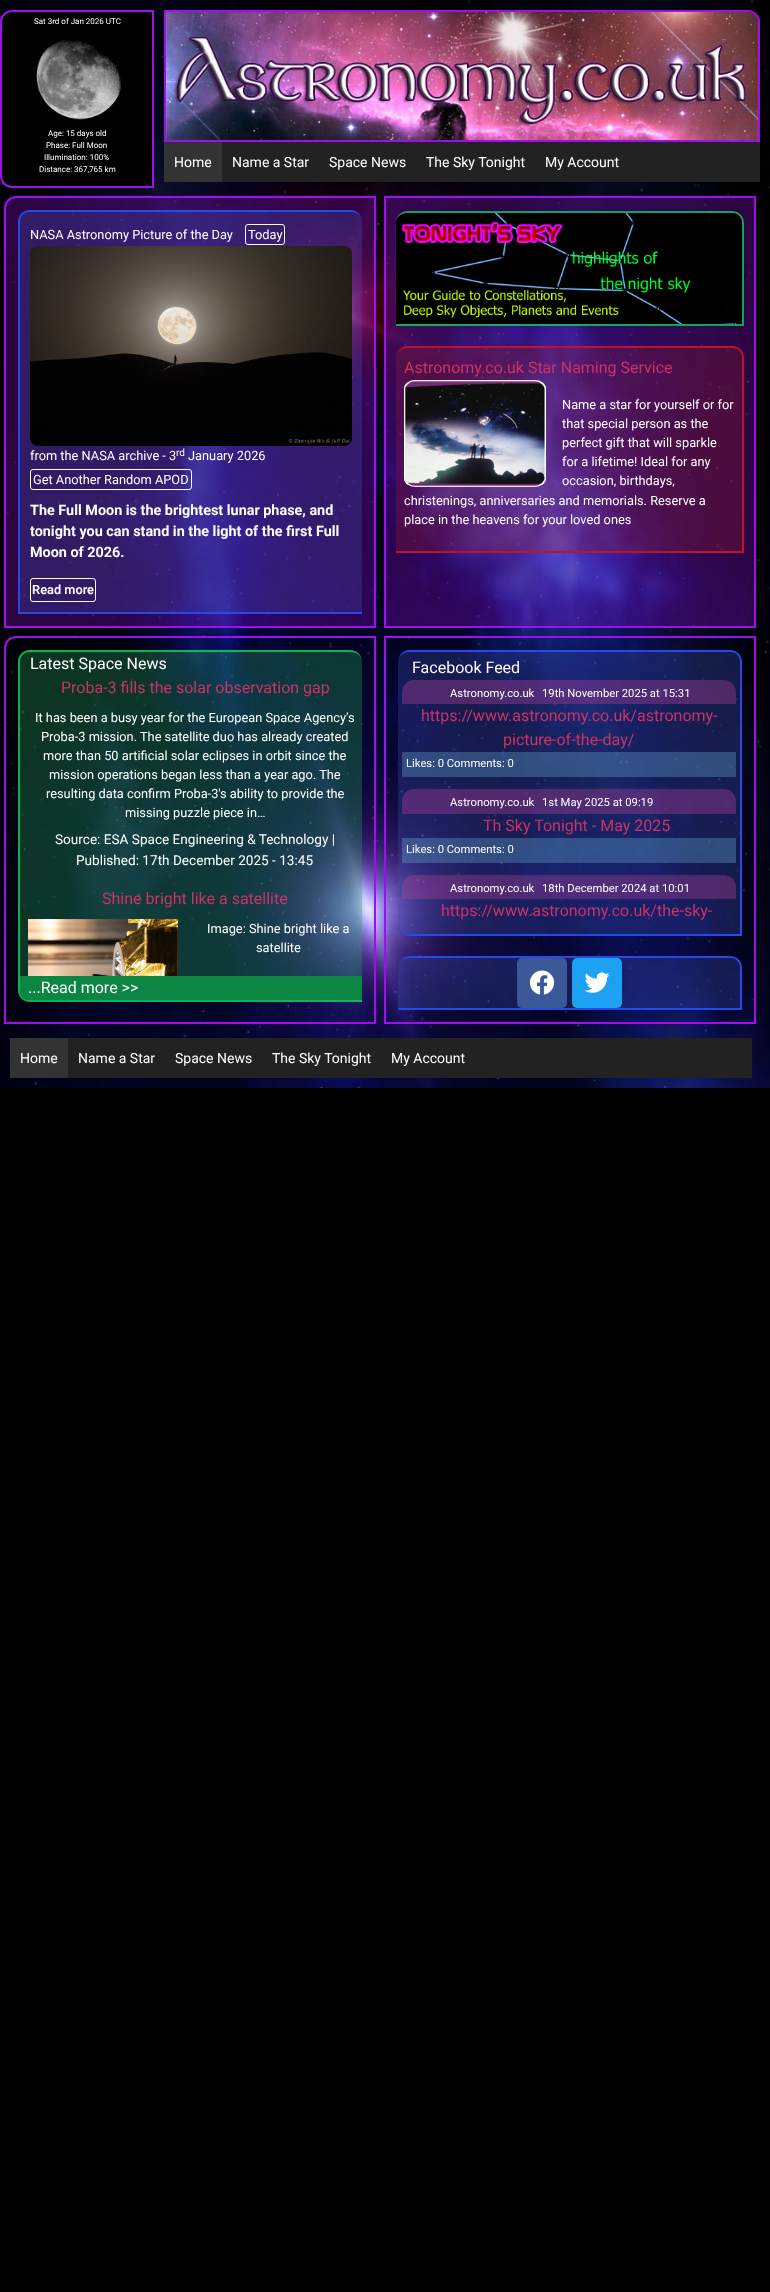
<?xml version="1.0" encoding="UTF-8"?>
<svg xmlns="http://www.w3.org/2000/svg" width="770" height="2292">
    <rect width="100%" height="100%" fill="#000000"/>
    <image x="0" y="0" width="770" height="1088" href="img_01.png"/>
    <path d="M 12 11 H 153 V 187 H 12 C 6 187 1 182 1 176 V 22 C 1 16 6 11 12 11 Z" fill="#000000" stroke="#9F10E9" stroke-width="2"/>
    <text x="34" y="24" font-family="Roboto" font-size="8" fill="#FFFFFF">Sat 3rd of Jan 2026 UTC</text>
    <image x="36" y="40" width="85" height="80" href="img_02.png"/>
    <text x="48" y="136" font-family="Roboto" font-size="8" fill="#FFFFFF">Age: 15 days old</text>
    <text x="46" y="148" font-family="Roboto" font-size="8" fill="#FFFFFF">Phase: Full Moon</text>
    <text x="44" y="160" font-family="Roboto" font-size="8" fill="#FFFFFF">Illumination: 100%</text>
    <text x="39" y="172" font-family="Roboto" font-size="8" fill="#FFFFFF">Distance: 367,765 km</text>
    <rect x="748" y="10" width="4" height="12" fill="#000000"/>
    <path d="M 165 11 H 748 C 754 11 759 16 759 22 V 141 H 165 Z" fill="none" stroke="#9F10E9" stroke-width="2"/>
    <image x="166" y="12" width="592" height="128" href="img_03.png"/>
    <rect x="222" y="142" width="538" height="40" fill="#222222"/>
    <rect x="164" y="142" width="58" height="40" fill="#333333"/>
    <text x="174" y="167" font-family="Roboto" font-size="14" fill="#FFFFFF">Home</text>
    <text x="232" y="167" font-family="Roboto" font-size="14" fill="#FFFFFF">Name a Star</text>
    <text x="329" y="167" font-family="Roboto" font-size="14" fill="#FFFFFF">Space News</text>
    <text x="426" y="167" font-family="Roboto" font-size="14" fill="#FFFFFF">The Sky Tonight</text>
    <text x="545" y="167" font-family="Roboto" font-size="14" fill="#FFFFFF">My Account</text>
    <path d="M 16 197 H 375 V 627 H 5 V 208 C 5 202 10 197 16 197 Z" fill="#9F10E9" fill-opacity="0.27" stroke="#9F10E9" stroke-width="2"/>
    <path d="M 30 212 H 350 C 357 212 362 216 362 222 V 612 H 20 V 222 C 20 216 24 212 30 212 Z" fill="#4054B2" fill-opacity="0.3"/>
    <path d="M 30 210 H 350 C 357 210 362 215 362 222 V 614 H 18 V 222 C 18 215 23 210 30 210 Z M 30 212 H 350 C 357 212 362 216 362 222 V 612 H 20 V 222 C 20 216 24 212 30 212 Z" fill="#2749E9" fill-rule="evenodd"/>
    <text x="30" y="239" font-family="Roboto" font-size="12.8" fill="#FFFFFF">NASA Astronomy Picture of the Day</text>
    <rect x="245.5" y="224.5" width="39" height="20" rx="2.5" fill="none" stroke="#FFFFFF"/>
    <text x="248" y="239" font-family="Roboto" font-size="12.8" fill="#FFFFFF">Today</text>
    <image x="30" y="246" width="322" height="200" href="img_04.png"/>
    <text x="30" y="460" font-family="Roboto" font-size="12.8" fill="#FFFFFF">from the NASA archive - 3</text>
    <text x="176" y="456" font-family="Roboto" font-size="10" fill="#FFFFFF">rd</text>
    <text x="188" y="460" font-family="Roboto" font-size="12.8" fill="#FFFFFF">January 2026</text>
    <rect x="30.5" y="469.5" width="161" height="20" rx="2.5" fill="none" stroke="#FFFFFF"/>
    <text x="33" y="484" font-family="Roboto" font-size="12.8" fill="#FFFFFF">Get Another Random APOD</text>
    <text font-family="Roboto" font-size="14.4" font-weight="700" fill="#FFFFFF">
        <tspan x="30" y="515">The Full Moon is the brightest lunar phase, and</tspan>
        <tspan x="30" y="536">tonight you can stand in the light of the first Full</tspan>
        <tspan x="30" y="557">Moon of 2026.</tspan>
    </text>
    <rect x="30.5" y="578.5" width="65" height="23" rx="2.5" fill="none" stroke="#FFFFFF"/>
    <text x="32" y="594" font-family="Roboto" font-size="12.8" font-weight="600" fill="#FFFFFF">Read more</text>
    <rect x="385" y="197" width="370" height="430" fill="#9F10E9" fill-opacity="0.28" stroke="#9F10E9" stroke-width="2"/>
    <path d="M 408 211 H 732 C 739 211 744 216 744 223 V 326 H 396 V 223 C 396 216 401 211 408 211 Z M 408 213 H 732 C 738 213 742 217 742 223 V 324 H 396 V 223 C 396 217 401 213 408 213 Z" fill="#07F764" fill-opacity="0.65" fill-rule="evenodd"/>
    <image x="396" y="213" width="346" height="111" href="img_05.png"/>
    <path d="M 408 348 H 732 C 738 348 742 352 742 358 V 551 H 396 V 358 C 396 352 401 348 408 348 Z" fill="#A42323" fill-opacity="0.25"/>
    <path d="M 408 346 H 732 C 739 346 744 351 744 358 V 553 H 396 V 358 C 396 351 401 346 408 346 Z M 408 348 H 732 C 738 348 742 352 742 358 V 551 H 396 V 358 C 396 352 401 348 408 348 Z" fill="#BE132E" fill-rule="evenodd"/>
    <text x="404" y="373" font-family="Roboto" font-size="16" fill="#CC3366">Astronomy.co.uk Star Naming Service</text>
    <image x="404" y="380" width="142" height="107" href="img_06.png"/>
    <text font-family="Roboto" font-size="12.8" fill="#FFFFFF">
        <tspan x="562" y="409">Name a star for yourself or for</tspan>
        <tspan x="562" y="428">that special person as the</tspan>
        <tspan x="562" y="447">perfect gift that will sparkle</tspan>
        <tspan x="562" y="466">for a lifetime! Ideal for any</tspan>
        <tspan x="562" y="485">occasion, birthdays,</tspan>
    </text>
    <text font-family="Roboto" font-size="12.8" fill="#FFFFFF">
        <tspan x="404" y="505">christenings, anniversaries and memorials. Reserve a</tspan>
        <tspan x="404" y="524">place in the heavens for your loved ones</tspan>
    </text>
    <path d="M 16 637 H 375 V 1023 H 5 V 648 C 5 642 10 637 16 637 Z" fill="none" stroke="#9F10E9" stroke-width="2"/>
    <path d="M 30 650 H 350 C 356.5 650 362 655.5 362 662 V 1002 H 30 C 23.5 1002 18 996.5 18 990 V 662 C 18 655.5 23.5 650 30 650 Z" fill="#23A455" fill-opacity="0.32"/>
    <path d="M 30 650 H 350 C 357 650 362 655 362 662 V 1002 H 30 C 23 1002 18 997 18 990 V 662 C 18 655 23 650 30 650 Z M 30 652 H 350 C 357 652 362 656 362 662 V 1000 H 30 C 24 1000 20 996 20 990 V 662 C 20 656 24 652 30 652 Z" fill="#07F764" fill-opacity="0.65" fill-rule="evenodd"/>
    <text x="30" y="669" font-family="Roboto" font-size="16" fill="#FFFFFF">Latest Space News</text>
    <text x="61" y="693" font-family="Roboto" font-size="16" fill="#CC3366">Proba-3 fills the solar observation gap</text>
    <text x="35" y="722" font-family="Roboto" font-size="12.8" fill="#FFFFFF">It has been a busy year for the European Space Agency’s</text>
    <text x="41" y="741" font-family="Roboto" font-size="12.8" fill="#FFFFFF">Proba-3 mission. The satellite duo has already created</text>
    <text x="43" y="760" font-family="Roboto" font-size="12.8" fill="#FFFFFF">more than 50 artificial solar eclipses in orbit since the</text>
    <text x="49" y="779" font-family="Roboto" font-size="12.8" fill="#FFFFFF">mission operations began less than a year ago. The</text>
    <text x="46" y="798" font-family="Roboto" font-size="12.8" fill="#FFFFFF">resulting data confirm Proba-3's ability to provide the</text>
    <text x="125" y="817" font-family="Roboto" font-size="12.8" fill="#FFFFFF">missing puzzle piece in…</text>
    <text x="55" y="844" font-family="Roboto" font-size="13.6" fill="#FFFFFF">Source: ESA Space Engineering &amp; Technology |</text>
    <text x="76" y="865" font-family="Roboto" font-size="13.6" fill="#FFFFFF">Published: 17th December 2025 - 13:45</text>
    <text x="102" y="904" font-family="Roboto" font-size="16" fill="#CC3366">Shine bright like a satellite</text>
    <image x="28" y="919" width="150" height="57" href="img_07.png"/>
    <text x="207" y="933" font-family="Roboto" font-size="12.8" fill="#FFFFFF">Image: Shine bright like a</text>
    <text x="256" y="952" font-family="Roboto" font-size="12.8" fill="#FFFFFF">satellite</text>
    <path d="M 20 976 H 362 V 1000 H 28 C 23.5 1000 20 996.5 20 992 Z" fill="#0B8542"/>
    <text x="28" y="993" font-family="Roboto" font-size="16" fill="#FFFFFF">...Read more &gt;&gt;</text>
    <rect x="385" y="637" width="370" height="386" fill="none" stroke="#9F10E9" stroke-width="2"/>
    <path d="M 410 652 H 730 C 736 652 740 656 740 662 V 934 H 409 C 403 934 398 930 398 925 V 662 C 398 656 403 652 410 652 Z" fill="#4054B2" fill-opacity="0.3"/>
    <path d="M 410 650 H 730 C 737 650 742 655 742 662 V 936 H 409 C 403 936 398 931 398 925 V 662 C 398 655 403 650 410 650 Z M 410 652 H 730 C 736 652 740 656 740 662 V 934 H 409 C 403 934 398 930 398 925 V 662 C 398 656 403 652 410 652 Z" fill="#2749E9" fill-rule="evenodd"/>
    <text x="412" y="673" font-family="Roboto" font-size="16" fill="#FFFFFF">Facebook Feed</text>
    <path d="M 414 680 H 724 C 730.5 680 736 685.5 736 692 V 704 H 402 V 692 C 402 685.5 407.5 680 414 680 Z" fill="#B24099" fill-opacity="0.37"/>
    <text x="450" y="697" font-family="Roboto" font-size="11.25" fill="#FFFFFF">Astronomy.co.uk</text>
    <text x="542" y="697" font-family="Roboto" font-size="11.25" fill="#FFFFFF">19th November 2025 at 15:31</text>
    <text x="421" y="721" font-family="Roboto" font-size="16" fill="#CC3366">https://www.astronomy.co.uk/astronomy-</text>
    <text x="503" y="745" font-family="Roboto" font-size="16" fill="#CC3366">picture-of-the-day/</text>
    <rect x="402" y="752" width="334" height="25" fill="#6EC1E4" fill-opacity="0.3"/>
    <text x="406" y="767" font-family="Roboto" font-size="11.25" fill="#FFFFFF">Likes: 0 Comments: 0</text>
    <path d="M 414 789 H 724 C 730.5 789 736 794.5 736 801 V 814 H 402 V 801 C 402 794.5 407.5 789 414 789 Z" fill="#B24099" fill-opacity="0.37"/>
    <text x="450" y="806" font-family="Roboto" font-size="11.25" fill="#FFFFFF">Astronomy.co.uk</text>
    <text x="542" y="806" font-family="Roboto" font-size="11.25" fill="#FFFFFF">1st May 2025 at 09:19</text>
    <text x="483" y="831" font-family="Roboto" font-size="16" fill="#CC3366">Th Sky Tonight - May 2025</text>
    <rect x="402" y="838" width="334" height="25" fill="#6EC1E4" fill-opacity="0.3"/>
    <text x="406" y="853" font-family="Roboto" font-size="11.25" fill="#FFFFFF">Likes: 0 Comments: 0</text>
    <path d="M 414 875 H 724 C 730.5 875 736 880.5 736 887 V 899 H 402 V 887 C 402 880.5 407.5 875 414 875 Z" fill="#B24099" fill-opacity="0.37"/>
    <text x="450" y="892" font-family="Roboto" font-size="11.25" fill="#FFFFFF">Astronomy.co.uk</text>
    <text x="542" y="892" font-family="Roboto" font-size="11.25" fill="#FFFFFF">18th December 2024 at 10:01</text>
    <text x="441" y="916" font-family="Roboto" font-size="16" fill="#CC3366">https://www.astronomy.co.uk/the-sky-</text>
    <path d="M 410 958 H 730 C 736 958 740 962 740 968 V 1008 H 398 V 968 C 398 962 403 958 410 958 Z" fill="#4054B2" fill-opacity="0.3"/>
    <path d="M 410 956 H 730 C 737 956 742 961 742 968 V 1010 H 398 V 968 C 398 961 403 956 410 956 Z M 410 958 H 730 C 736 958 740 962 740 968 V 1008 H 398 V 968 C 398 962 403 958 410 958 Z" fill="#2749E9" fill-rule="evenodd"/>
    <rect x="517" y="958" width="50" height="50" rx="5" fill="#3B5998"/>
    <image x="529" y="970" width="26" height="25" href="img_08.png"/>
    <rect x="572" y="958" width="50" height="50" rx="5" fill="#1DA1F2"/>
    <image x="584" y="972" width="26" height="21" href="img_09.png"/>
    <rect x="68" y="1038" width="684" height="40" fill="#222222"/>
    <rect x="10" y="1038" width="58" height="40" fill="#333333"/>
    <text x="20" y="1063" font-family="Roboto" font-size="14" fill="#FFFFFF">Home</text>
    <text x="78" y="1063" font-family="Roboto" font-size="14" fill="#FFFFFF">Name a Star</text>
    <text x="175" y="1063" font-family="Roboto" font-size="14" fill="#FFFFFF">Space News</text>
    <text x="272" y="1063" font-family="Roboto" font-size="14" fill="#FFFFFF">The Sky Tonight</text>
    <text x="391" y="1063" font-family="Roboto" font-size="14" fill="#FFFFFF">My Account</text>
</svg>
